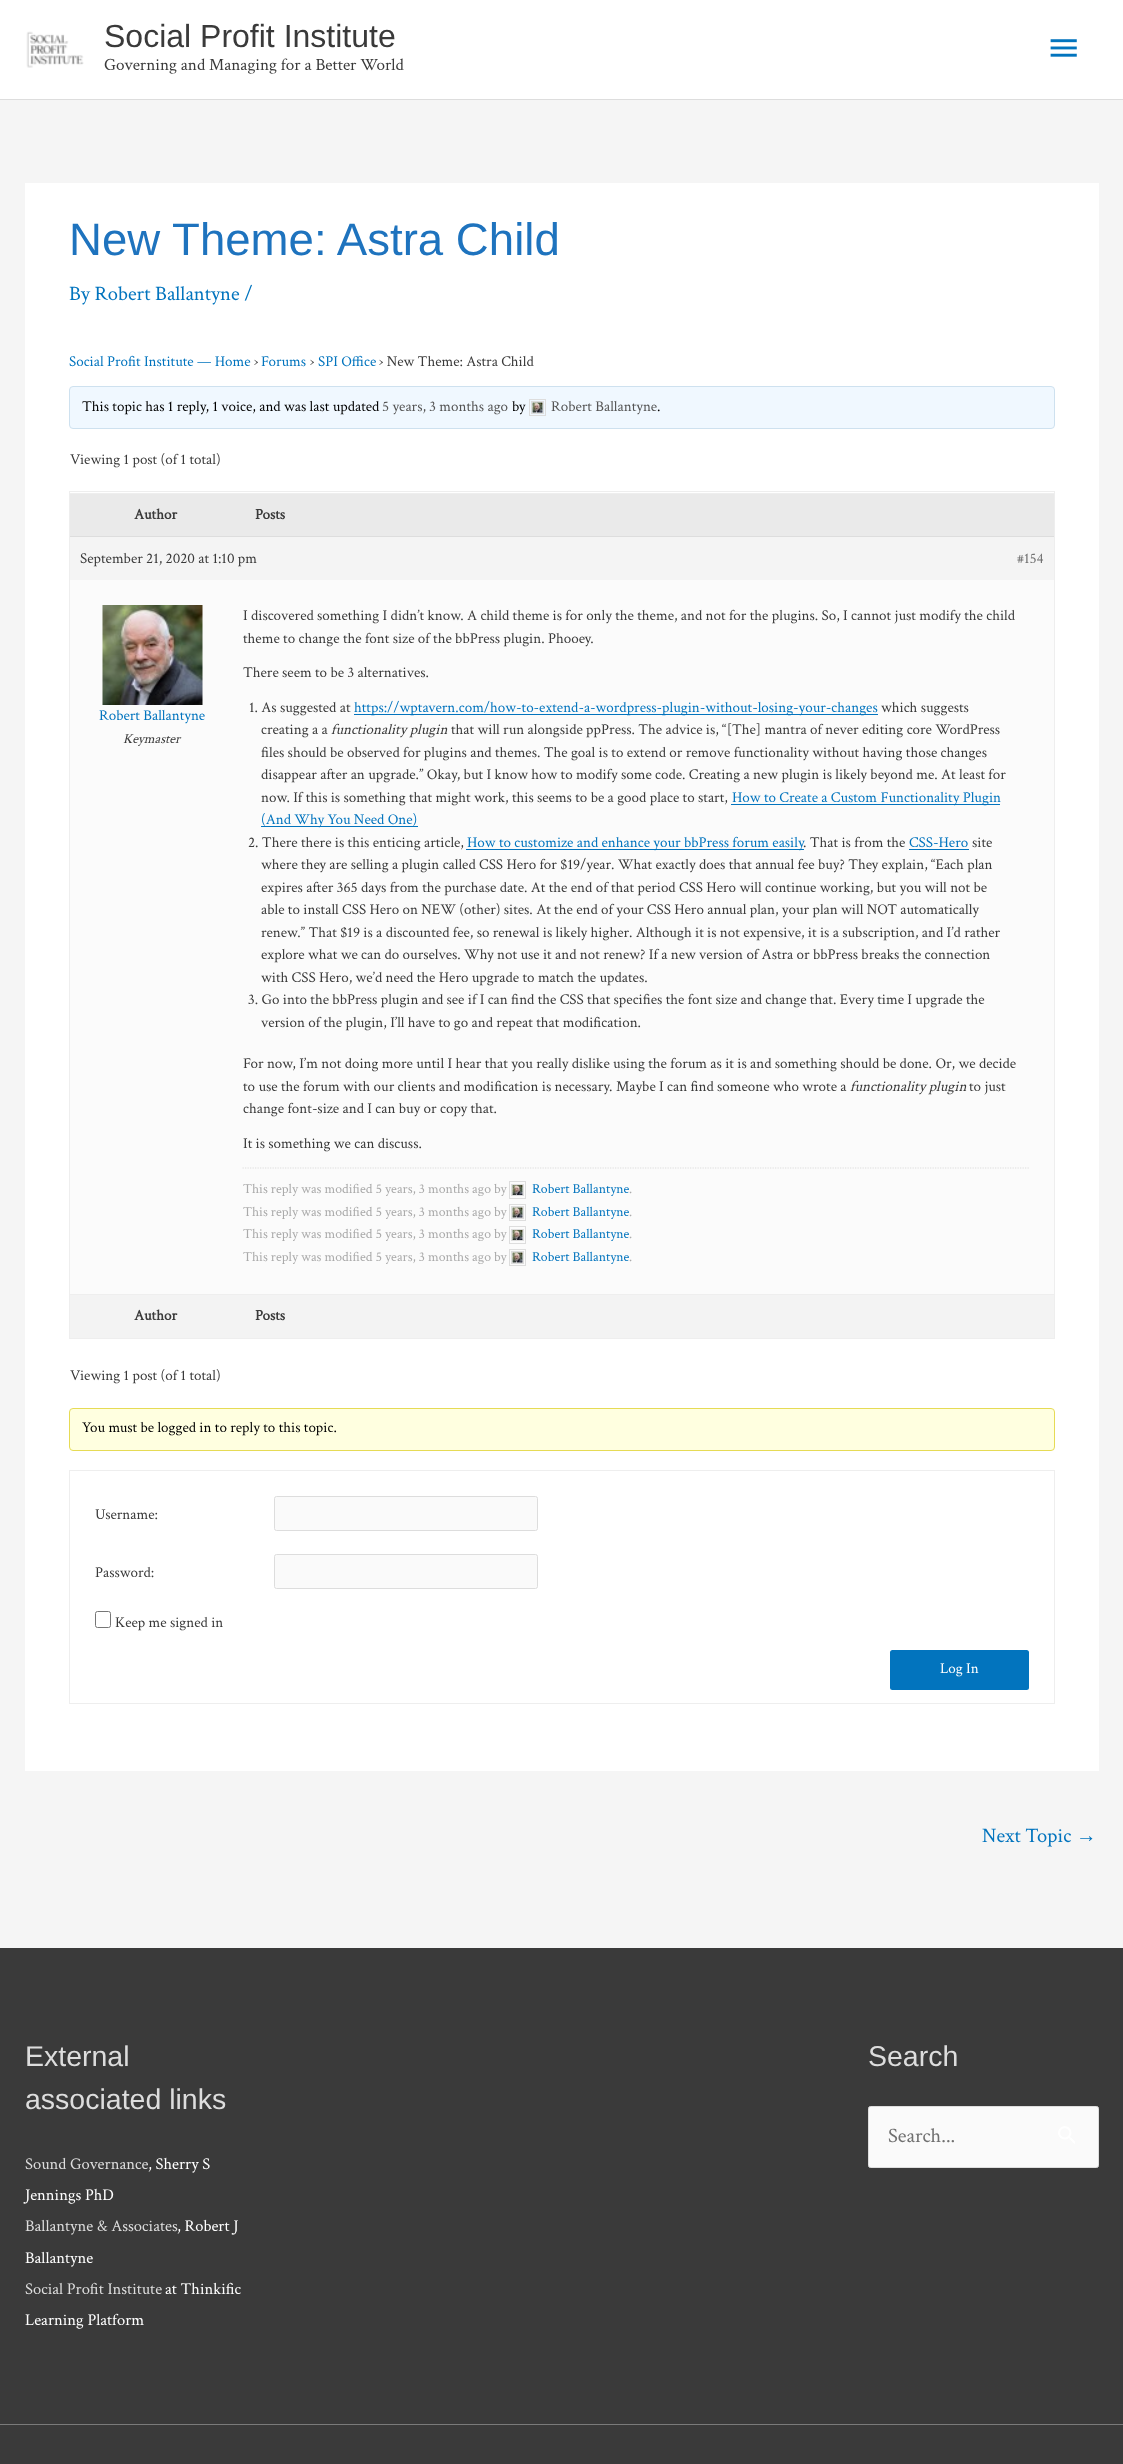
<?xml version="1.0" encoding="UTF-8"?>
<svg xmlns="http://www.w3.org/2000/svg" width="1123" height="2464">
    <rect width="100%" height="100%" fill="#F5F5F5"/>
    <rect x="0" y="0" width="1123" height="99" fill="#FFFFFF"/>
    <rect x="0" y="99" width="1123" height="1" fill="#DDDDDD"/>
    <image x="26" y="31" width="58" height="37" href="img_01.png"/>
    <text x="104" y="47" font-family="Liberation Sans" font-size="32" fill="#3A3A3A">Social Profit Institute</text>
    <text x="104" y="70" font-family="Crimson Text" font-size="17.1" fill="#3A3A3A">Governing and Managing for a Better World</text>
    <image x="1050" y="39" width="27" height="18" href="img_02.png"/>
    <rect x="25" y="183" width="1074" height="1588" fill="#FFFFFF"/>
    <text x="69" y="255" font-family="Liberation Sans" font-size="45.6" fill="#1E73BE">New Theme: Astra Child</text>
    <text x="69" y="300" font-family="Crimson Text" font-size="20.5" fill="#0274BE">By Robert Ballantyne /</text>
    <text x="69" y="366" font-family="Crimson Text" font-size="15" fill="#0274BE">Social Profit Institute — Home</text>
    <text x="254" y="366" font-family="Crimson Text" font-size="15" fill="#3A3A3A">›</text>
    <text x="261" y="366" font-family="Crimson Text" font-size="15" fill="#0274BE">Forums</text>
    <text x="310" y="366" font-family="Crimson Text" font-size="15" fill="#3A3A3A">›</text>
    <text x="318" y="366" font-family="Crimson Text" font-size="15" fill="#0274BE">SPI Office</text>
    <text x="379" y="366" font-family="Crimson Text" font-size="15" fill="#3A3A3A">› New Theme: Astra Child</text>
    <rect x="69.5" y="386.5" width="985" height="42" rx="3.5" fill="#F0F8FF" stroke="#CEE1EF"/>
    <text x="82" y="411" font-family="Crimson Text" font-size="15" fill="#000000">This topic has 1 reply, 1 voice, and was last updated</text>
    <text x="382" y="411" font-family="Crimson Text" font-size="15" fill="#555555">5 years, 3 months ago</text>
    <text x="512" y="411" font-family="Crimson Text" font-size="15" fill="#000000">by</text>
    <rect x="529.5" y="399.5" width="16" height="16" fill="none" stroke="#DDDDDD"/>
    <rect x="531.5" y="401.5" width="12" height="12" fill="none" stroke="#DDDDDD"/>
    <image x="532" y="402" width="11" height="11" href="img_03.png"/>
    <text x="551" y="411" font-family="Crimson Text" font-size="15" fill="#555555">Robert Ballantyne</text>
    <text x="657" y="411" font-family="Crimson Text" font-size="15" fill="#000000">.</text>
    <text x="70" y="464" font-family="Crimson Text" font-size="15" fill="#3A3A3A">Viewing 1 post (of 1 total)</text>
    <rect x="69.5" y="491.5" width="985" height="847" fill="none" stroke="#EEEEEE"/>
    <rect x="70" y="494" width="984" height="42" fill="#EAEAEA"/>
    <rect x="70" y="493" width="984" height="1" fill="#EEEEEE"/>
    <text x="134" y="519" font-family="Crimson Text" font-size="15" font-weight="700" fill="#3A3A3A">Author</text>
    <text x="255" y="519" font-family="Crimson Text" font-size="15" font-weight="700" fill="#3A3A3A">Posts</text>
    <rect x="70" y="537" width="984" height="43" fill="#F4F4F4"/>
    <rect x="70" y="536" width="984" height="1" fill="#DDDDDD"/>
    <text x="80" y="563" font-family="Crimson Text" font-size="15" fill="#3A3A3A">September 21, 2020 at 1:10 pm</text>
    <text x="1017" y="563" font-family="Crimson Text" font-size="15" fill="#707070">#154</text>
    <rect x="70" y="580" width="984" height="714" fill="#FBFBFB"/>
    <image x="102" y="605" width="101" height="100" href="img_04.png"/>
    <text x="99" y="720" font-family="Crimson Text" font-size="15" fill="#0274BE">Robert Ballantyne</text>
    <text x="123" y="743" font-family="Crimson Text" font-size="13.75" font-style="italic" fill="#3A3A3A">Keymaster</text>
    <text font-family="Crimson Text" font-size="15" fill="#3A3A3A">
        <tspan x="243" y="620">I discovered something I didn’t know. A child theme is for only the theme, and not for the plugins. So, I cannot just modify the child</tspan>
        <tspan x="243" y="643">theme to change the font size of the bbPress plugin. Phooey.</tspan>
    </text>
    <text x="243" y="677" font-family="Crimson Text" font-size="15" fill="#3A3A3A">There seem to be 3 alternatives.</text>
    <text x="249" y="712" font-family="Crimson Text" font-size="15" fill="#3A3A3A">1. As suggested at</text>
    <rect x="354" y="714" width="524" height="1" fill="#0274BE"/>
    <text x="354" y="712" font-family="Crimson Text" font-size="15" fill="#0274BE">https://wptavern.com/how-to-extend-a-wordpress-plugin-without-losing-your-changes</text>
    <text x="881" y="712" font-family="Crimson Text" font-size="15" fill="#3A3A3A">which suggests</text>
    <text x="261" y="734" font-family="Crimson Text" font-size="15" fill="#3A3A3A">creating a a</text>
    <text x="331" y="734" font-family="Crimson Text" font-size="15" font-style="italic" fill="#3A3A3A">functionality plugin</text>
    <text x="451" y="734" font-family="Crimson Text" font-size="15" fill="#3A3A3A">that will run alongside ppPress. The advice is, “[The] mantra of never editing core WordPress</text>
    <text font-family="Crimson Text" font-size="15" fill="#3A3A3A">
        <tspan x="261" y="757">files should be observed for plugins and themes. The goal is to extend or remove functionality without having those changes</tspan>
        <tspan x="261" y="779">disappear after an upgrade.” Okay, but I know how to modify some code. Creating a new plugin is likely beyond me. At least for</tspan>
        <tspan x="261" y="802">now. If this is something that might work, this seems to be a good place to start,</tspan>
    </text>
    <rect x="731" y="804" width="269" height="1" fill="#0274BE"/>
    <text x="732" y="802" font-family="Crimson Text" font-size="15" fill="#0274BE">How to Create a Custom Functionality Plugin</text>
    <rect x="261" y="826" width="157" height="1" fill="#0274BE"/>
    <text x="261" y="824" font-family="Crimson Text" font-size="15" fill="#0274BE">(And Why You Need One)</text>
    <text x="248" y="847" font-family="Crimson Text" font-size="15" fill="#3A3A3A">2. There there is this enticing article,</text>
    <rect x="466" y="849" width="338" height="1" fill="#0274BE"/>
    <text x="467" y="847" font-family="Crimson Text" font-size="15" fill="#0274BE">How to customize and enhance your bbPress forum easily</text>
    <text x="803" y="847" font-family="Crimson Text" font-size="15" fill="#3A3A3A">. That is from the</text>
    <text x="909" y="847" font-family="Crimson Text" font-size="15" fill="#0274BE">CSS-Hero</text>
    <rect x="909" y="849" width="60" height="1" fill="#0274BE"/>
    <text x="972" y="847" font-family="Crimson Text" font-size="15" fill="#3A3A3A">site</text>
    <text font-family="Crimson Text" font-size="15" fill="#3A3A3A">
        <tspan x="261" y="869">where they are selling a plugin called CSS Hero for $19/year. What exactly does that annual fee buy? They explain, “Each plan</tspan>
        <tspan x="261" y="892">expires after 365 days from the purchase date. At the end of that period CSS Hero will continue working, but you will not be</tspan>
        <tspan x="261" y="914">able to install CSS Hero on NEW (other) sites. At the end of your CSS Hero annual plan, your plan will NOT automatically</tspan>
        <tspan x="261" y="937">renew.” That $19 is a discounted fee, so renewal is likely higher. Although it is not expensive, it is a subscription, and I’d rather</tspan>
        <tspan x="261" y="959">explore what we can do ourselves. Why not use it and not renew? If a new version of Astra or bbPress breaks the connection</tspan>
        <tspan x="261" y="982">with CSS Hero, we’d need the Hero upgrade to match the updates.</tspan>
    </text>
    <text x="248" y="1004" font-family="Crimson Text" font-size="15" fill="#3A3A3A">3. Go into the bbPress plugin and see if I can find the CSS that specifies the font size and change that. Every time I upgrade the</text>
    <text x="261" y="1027" font-family="Crimson Text" font-size="15" fill="#3A3A3A">version of the plugin, I’ll have to go and repeat that modification.</text>
    <text font-family="Crimson Text" font-size="15" fill="#3A3A3A">
        <tspan x="243" y="1068">For now, I’m not doing more until I hear that you really dislike using the forum as it is and something should be done. Or, we decide</tspan>
        <tspan x="243" y="1091">to use the forum with our clients and modification is necessary. Maybe I can find someone who wrote a</tspan>
    </text>
    <text x="850" y="1091" font-family="Crimson Text" font-size="15" font-style="italic" fill="#3A3A3A">functionality plugin</text>
    <text x="969" y="1091" font-family="Crimson Text" font-size="15" fill="#3A3A3A">to just</text>
    <text x="243" y="1113" font-family="Crimson Text" font-size="15" fill="#3A3A3A">change font-size and I can buy or copy that.</text>
    <text x="243" y="1148" font-family="Crimson Text" font-size="15" fill="#3A3A3A">It is something we can discuss.</text>
    <path d="M 242.5 1168 H 1029" fill="none" stroke="#DDDDDD" stroke-width="1.2" stroke-dasharray="1.25 1.25"/>
    <text x="243" y="1193" font-family="Crimson Text" font-size="13.75" fill="#AAAAAA">This reply was modified 5 years, 3 months ago by</text>
    <rect x="509.5" y="1181.5" width="16" height="17" fill="none" stroke="#DDDDDD"/>
    <rect x="511.5" y="1184.5" width="12" height="11" fill="none" stroke="#DDDDDD"/>
    <image x="512" y="1185" width="11" height="10" href="img_05.png"/>
    <text x="532" y="1193" font-family="Crimson Text" font-size="13.75" fill="#0274BE">Robert Ballantyne</text>
    <text x="629" y="1193" font-family="Crimson Text" font-size="13.75" fill="#AAAAAA">.</text>
    <text x="243" y="1216" font-family="Crimson Text" font-size="13.75" fill="#AAAAAA">This reply was modified 5 years, 3 months ago by</text>
    <rect x="509.5" y="1204.5" width="16" height="16" fill="none" stroke="#DDDDDD"/>
    <rect x="511.5" y="1206.5" width="12" height="12" fill="none" stroke="#DDDDDD"/>
    <image x="512" y="1207" width="11" height="11" href="img_06.png"/>
    <text x="532" y="1216" font-family="Crimson Text" font-size="13.75" fill="#0274BE">Robert Ballantyne</text>
    <text x="629" y="1216" font-family="Crimson Text" font-size="13.75" fill="#AAAAAA">.</text>
    <text x="243" y="1238" font-family="Crimson Text" font-size="13.75" fill="#AAAAAA">This reply was modified 5 years, 3 months ago by</text>
    <rect x="509.5" y="1226.5" width="16" height="17" fill="none" stroke="#DDDDDD"/>
    <rect x="511.5" y="1229.5" width="12" height="11" fill="none" stroke="#DDDDDD"/>
    <image x="512" y="1230" width="11" height="10" href="img_05.png"/>
    <text x="532" y="1238" font-family="Crimson Text" font-size="13.75" fill="#0274BE">Robert Ballantyne</text>
    <text x="629" y="1238" font-family="Crimson Text" font-size="13.75" fill="#AAAAAA">.</text>
    <text x="243" y="1261" font-family="Crimson Text" font-size="13.75" fill="#AAAAAA">This reply was modified 5 years, 3 months ago by</text>
    <rect x="509.5" y="1249.5" width="16" height="16" fill="none" stroke="#DDDDDD"/>
    <rect x="511.5" y="1251.5" width="12" height="12" fill="none" stroke="#DDDDDD"/>
    <image x="512" y="1252" width="11" height="11" href="img_06.png"/>
    <text x="532" y="1261" font-family="Crimson Text" font-size="13.75" fill="#0274BE">Robert Ballantyne</text>
    <text x="629" y="1261" font-family="Crimson Text" font-size="13.75" fill="#AAAAAA">.</text>
    <rect x="70" y="1295" width="984" height="43" fill="#F3F3F3"/>
    <rect x="70" y="1294" width="984" height="1" fill="#EEEEEE"/>
    <text x="134" y="1320" font-family="Crimson Text" font-size="15" font-weight="700" fill="#3A3A3A">Author</text>
    <text x="255" y="1320" font-family="Crimson Text" font-size="15" font-weight="700" fill="#3A3A3A">Posts</text>
    <text x="70" y="1380" font-family="Crimson Text" font-size="15" fill="#3A3A3A">Viewing 1 post (of 1 total)</text>
    <rect x="69.5" y="1408.5" width="985" height="42" rx="3.5" fill="#FFFFE0" stroke="#E6DB55"/>
    <text x="82" y="1432" font-family="Crimson Text" font-size="15" fill="#000000">You must be logged in to reply to this topic.</text>
    <rect x="69.5" y="1470.5" width="985" height="233" fill="none" stroke="#EEEEEE"/>
    <text x="95" y="1519" font-family="Crimson Text" font-size="15" fill="#3A3A3A">Username:</text>
    <rect x="274.5" y="1496.5" width="263" height="34" rx="2" fill="#FAFAFA" stroke="#DDDDDD"/>
    <text x="95" y="1577" font-family="Crimson Text" font-size="15" fill="#3A3A3A">Password:</text>
    <rect x="274.5" y="1554.5" width="263" height="34" rx="2" fill="#FAFAFA" stroke="#DDDDDD"/>
    <rect x="95.5" y="1611.5" width="15" height="16" rx="2" fill="none" stroke="#767676"/>
    <text x="115" y="1627" font-family="Crimson Text" font-size="15" fill="#3A3A3A">Keep me signed in</text>
    <rect x="890" y="1650" width="139" height="40" rx="2.5" fill="#0274BE"/>
    <text x="940" y="1673" font-family="Crimson Text" font-size="15" fill="#FFFFFF">Log In</text>
    <text x="982" y="1842" font-family="Crimson Text" font-size="20.5" fill="#0274BE">Next Topic</text>
    <text x="1076" y="1842" font-family="Liberation Serif" font-size="20.5" fill="#0274BE">→</text>
    <rect x="0" y="1948" width="1123" height="476" fill="#3A3A3A"/>
    <text font-family="Liberation Sans" font-size="28.5" fill="#DDDDDD">
        <tspan x="25" y="2066">External</tspan>
        <tspan x="25" y="2109">associated links</tspan>
    </text>
    <text x="25" y="2169" font-family="Crimson Text" font-size="16.5" fill="#DDDDDD">Sound Governance</text>
    <text x="148" y="2169" font-family="Crimson Text" font-size="16.5" fill="#FFFFFF">, Sherry S</text>
    <text x="25" y="2200" font-family="Crimson Text" font-size="16.5" fill="#FFFFFF">Jennings PhD</text>
    <text x="25" y="2231" font-family="Crimson Text" font-size="16.5" fill="#DDDDDD">Ballantyne &amp; Associates</text>
    <text x="177" y="2231" font-family="Crimson Text" font-size="16.5" fill="#FFFFFF">, Robert J</text>
    <text x="25" y="2263" font-family="Crimson Text" font-size="16.5" fill="#FFFFFF">Ballantyne</text>
    <text x="25" y="2294" font-family="Crimson Text" font-size="16.5" fill="#DDDDDD">Social Profit Institute</text>
    <text x="165" y="2294" font-family="Crimson Text" font-size="16.5" fill="#FFFFFF">at Thinkific</text>
    <text x="25" y="2325" font-family="Crimson Text" font-size="16.5" fill="#FFFFFF">Learning Platform</text>
    <text x="868" y="2066" font-family="Liberation Sans" font-size="28.5" fill="#DDDDDD">Search</text>
    <rect x="868.5" y="2106.5" width="230" height="61" rx="2" fill="#FAFAFA" stroke="#DDDDDD"/>
    <text x="888" y="2142" font-family="Crimson Text" font-size="20.5" fill="#707070">Search...</text>
    <image x="1058" y="2126" width="17" height="18" href="img_07.png"/>
    <rect x="0" y="2424" width="1123" height="1" fill="#7A7A7A"/>
    <rect x="0" y="2425" width="1123" height="39" fill="#3A3A3A"/>
</svg>
